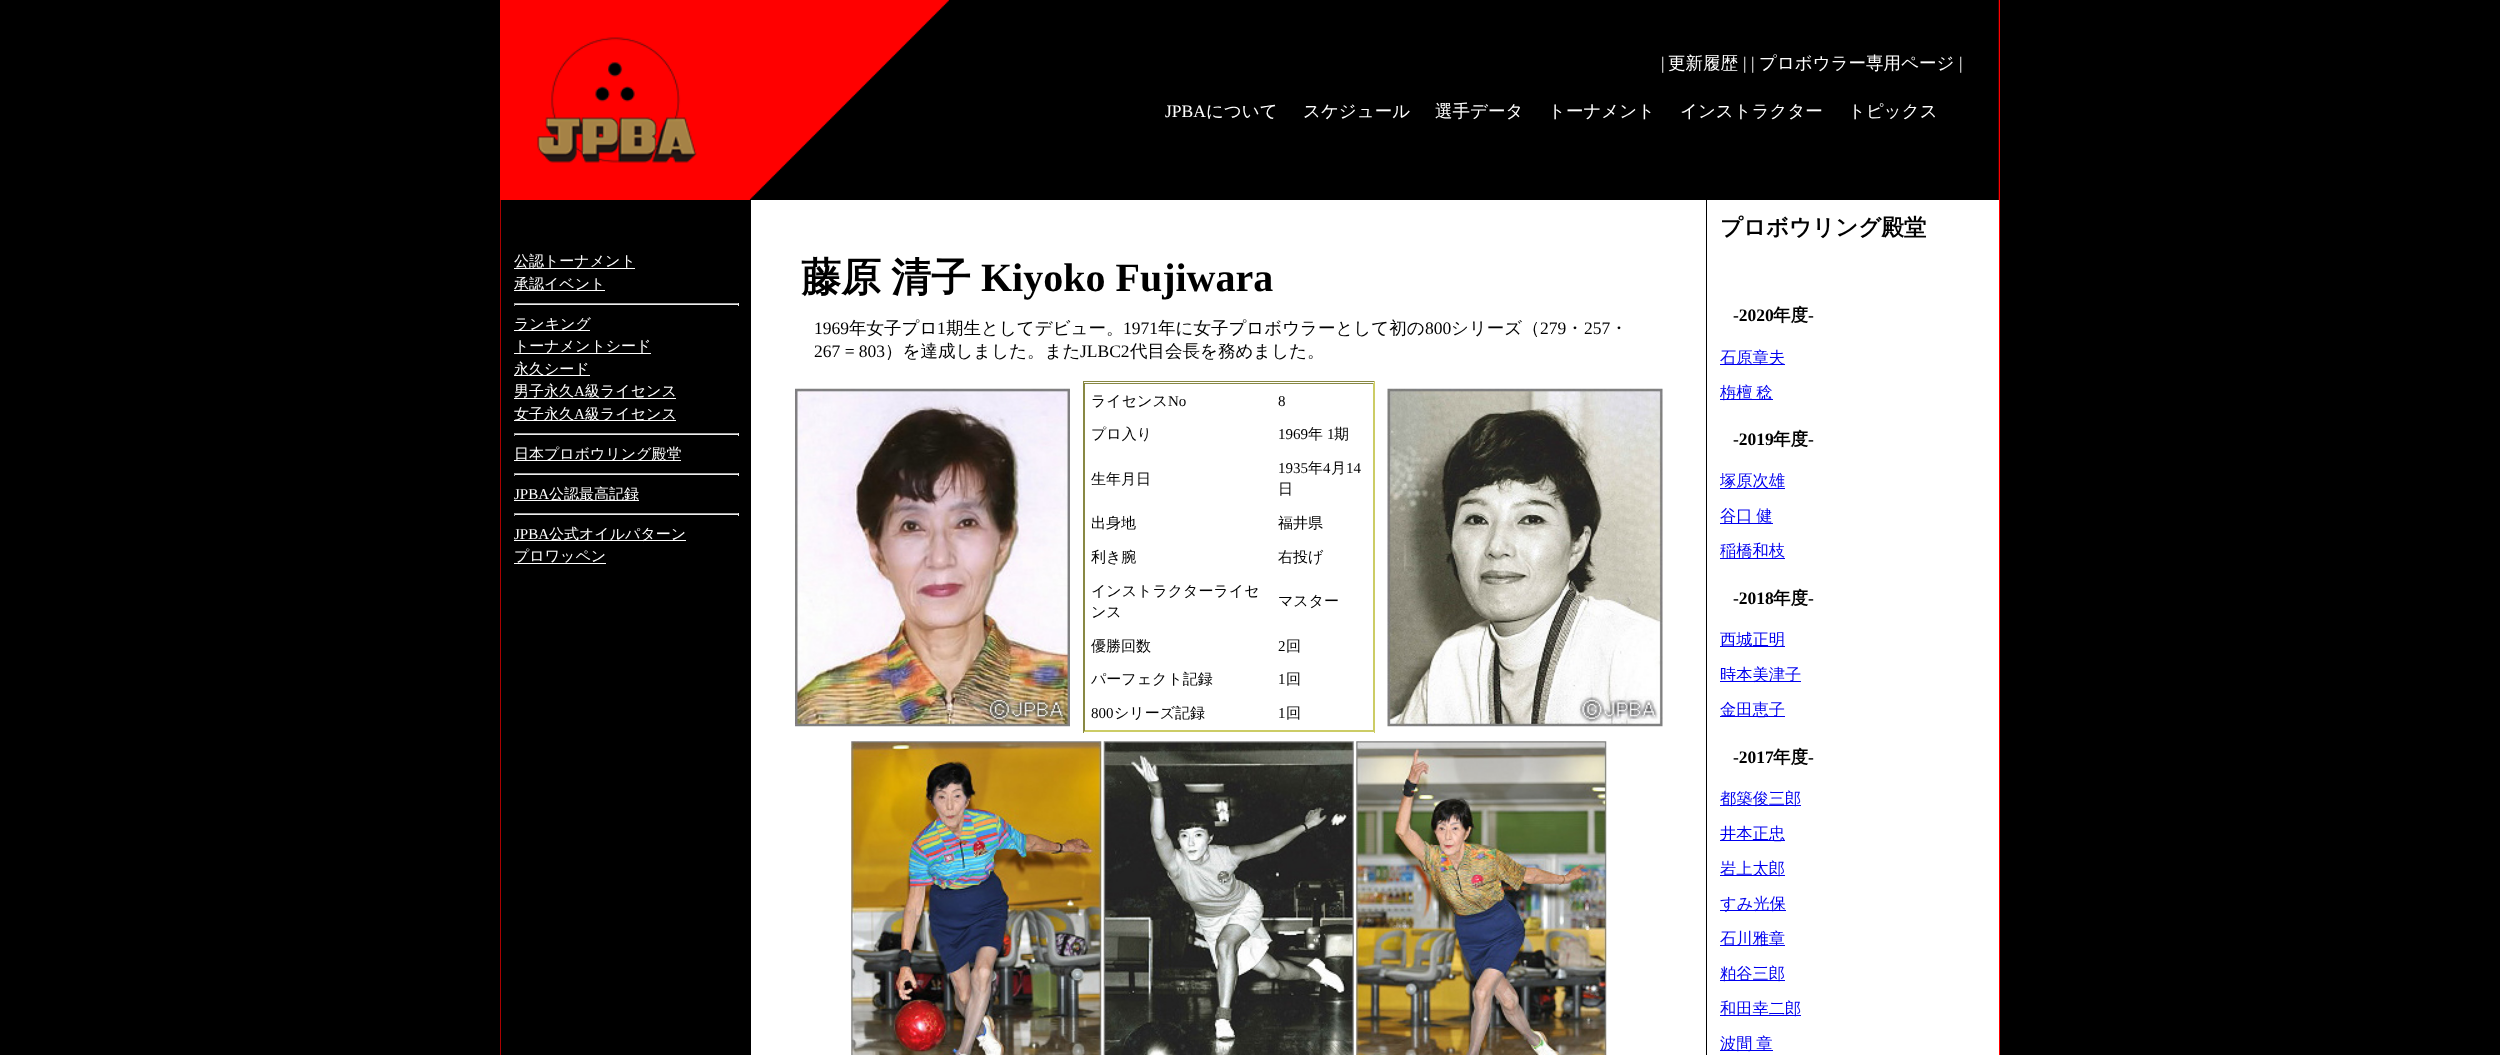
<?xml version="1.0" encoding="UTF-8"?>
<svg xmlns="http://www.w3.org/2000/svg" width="2500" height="1055">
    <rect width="100%" height="100%" fill="#000000"/>
    <image x="500" y="0" width="1500" height="200" href="img_01.png"/>
    <image x="537" y="37" width="160" height="126" href="img_02.png"/>
    <text x="1661" y="69" font-family="Liberation Serif" font-size="17.5" fill="#FFFFFF">|</text>
    <text x="1668" y="69" font-family="WenQuanYi Zen Hei" font-size="17.5" font-weight="500" fill="#FFFFFF">更新履歴</text>
    <text x="1743" y="69" font-family="Liberation Serif" font-size="17.5" fill="#FFFFFF">|</text>
    <text x="1751" y="69" font-family="Liberation Serif" font-size="17.5" fill="#FFFFFF">|</text>
    <text x="1759" y="69" font-family="WenQuanYi Zen Hei" font-size="17.5" font-weight="500" fill="#FFFFFF">プロボウラー専用ページ</text>
    <text x="1959" y="69" font-family="Liberation Serif" font-size="17.5" fill="#FFFFFF">|</text>
    <text x="1165" y="117" font-family="Liberation Serif" font-size="17.5" fill="#FFFFFF">JPBA</text>
    <text x="1206" y="117" font-family="WenQuanYi Zen Hei" font-size="17.5" font-weight="500" fill="#FFFFFF">について</text>
    <text x="1303" y="117" font-family="WenQuanYi Zen Hei" font-size="17.5" font-weight="500" fill="#FFFFFF">スケジュール</text>
    <text x="1435" y="117" font-family="WenQuanYi Zen Hei" font-size="17.5" font-weight="500" fill="#FFFFFF">選手データ</text>
    <text x="1548" y="117" font-family="WenQuanYi Zen Hei" font-size="17.5" font-weight="500" fill="#FFFFFF">トーナメント</text>
    <text x="1680" y="117" font-family="WenQuanYi Zen Hei" font-size="17.5" font-weight="500" fill="#FFFFFF">インストラクター</text>
    <text x="1848" y="117" font-family="WenQuanYi Zen Hei" font-size="17.5" font-weight="500" fill="#FFFFFF">トピックス</text>
    <rect x="751" y="200" width="1248" height="855" fill="#FFFFFF"/>
    <rect x="1999" y="200" width="1" height="855" fill="#FF0000"/>
    <rect x="500" y="200" width="1" height="855" fill="#AA0000"/>
    <rect x="514" y="268" width="121" height="1" fill="#FFFFFF"/>
    <text x="514" y="266" font-family="WenQuanYi Zen Hei" font-size="15" font-weight="500" fill="#FFFFFF">公認トーナメント</text>
    <rect x="514" y="290" width="91" height="1" fill="#FFFFFF"/>
    <text x="514" y="289" font-family="WenQuanYi Zen Hei" font-size="15" font-weight="500" fill="#FFFFFF">承認イベント</text>
    <rect x="514" y="303" width="225" height="1" fill="#9F9F9F"/>
    <rect x="738" y="303" width="1" height="3" fill="#EEEEEE"/>
    <rect x="514" y="304" width="225" height="1" fill="#EEEEEE"/>
    <rect x="514" y="303" width="1" height="3" fill="#9F9F9F"/>
    <rect x="514" y="330" width="76" height="1" fill="#FFFFFF"/>
    <text font-family="WenQuanYi Zen Hei" font-size="15" font-weight="500" fill="#FFFFFF">
        <tspan x="514" y="329">ランキング</tspan>
        <tspan x="514" y="351">トーナメントシード</tspan>
    </text>
    <rect x="514" y="353" width="137" height="1" fill="#FFFFFF"/>
    <rect x="514" y="375" width="76" height="1" fill="#FFFFFF"/>
    <text font-family="WenQuanYi Zen Hei" font-size="15" font-weight="500" fill="#FFFFFF">
        <tspan x="514" y="374">永久シード</tspan>
        <tspan x="514" y="396">男子永久</tspan>
    </text>
    <text x="574" y="396" font-family="Liberation Serif" font-size="15" fill="#FFFFFF">A</text>
    <rect x="514" y="398" width="162" height="1" fill="#FFFFFF"/>
    <text x="585" y="396" font-family="WenQuanYi Zen Hei" font-size="15" font-weight="500" fill="#FFFFFF">級ライセンス</text>
    <rect x="514" y="420" width="162" height="1" fill="#FFFFFF"/>
    <text x="514" y="419" font-family="WenQuanYi Zen Hei" font-size="15" font-weight="500" fill="#FFFFFF">女子永久</text>
    <text x="574" y="419" font-family="Liberation Serif" font-size="15" fill="#FFFFFF">A</text>
    <text x="585" y="419" font-family="WenQuanYi Zen Hei" font-size="15" font-weight="500" fill="#FFFFFF">級ライセンス</text>
    <rect x="514" y="433" width="225" height="1" fill="#9F9F9F"/>
    <rect x="738" y="433" width="1" height="3" fill="#EEEEEE"/>
    <rect x="514" y="434" width="225" height="1" fill="#EEEEEE"/>
    <rect x="514" y="433" width="1" height="3" fill="#9F9F9F"/>
    <rect x="514" y="460" width="167" height="1" fill="#FFFFFF"/>
    <text x="514" y="459" font-family="WenQuanYi Zen Hei" font-size="15" font-weight="500" fill="#FFFFFF">日本プロボウリング殿堂</text>
    <rect x="514" y="473" width="225" height="1" fill="#9F9F9F"/>
    <rect x="738" y="473" width="1" height="3" fill="#EEEEEE"/>
    <rect x="514" y="474" width="225" height="1" fill="#EEEEEE"/>
    <rect x="514" y="473" width="1" height="3" fill="#9F9F9F"/>
    <text x="514" y="499" font-family="Liberation Serif" font-size="15" fill="#FFFFFF">JPBA</text>
    <rect x="514" y="500" width="125" height="1" fill="#FFFFFF"/>
    <text x="549" y="499" font-family="WenQuanYi Zen Hei" font-size="15" font-weight="500" fill="#FFFFFF">公認最高記録</text>
    <rect x="514" y="513" width="225" height="1" fill="#9F9F9F"/>
    <rect x="738" y="513" width="1" height="3" fill="#EEEEEE"/>
    <rect x="514" y="514" width="225" height="1" fill="#EEEEEE"/>
    <rect x="514" y="513" width="1" height="3" fill="#9F9F9F"/>
    <text x="514" y="539" font-family="Liberation Serif" font-size="15" fill="#FFFFFF">JPBA</text>
    <rect x="514" y="540" width="172" height="1" fill="#FFFFFF"/>
    <text x="549" y="539" font-family="WenQuanYi Zen Hei" font-size="15" font-weight="500" fill="#FFFFFF">公式オイルパターン</text>
    <text x="514" y="561" font-family="WenQuanYi Zen Hei" font-size="15" font-weight="500" fill="#FFFFFF">プロワッペン</text>
    <rect x="514" y="563" width="92" height="1" fill="#FFFFFF"/>
    <text x="801" y="291" font-family="WenQuanYi Zen Hei" font-size="40" font-weight="700" fill="#000000">藤原</text>
    <text x="891" y="291" font-family="WenQuanYi Zen Hei" font-size="40" font-weight="700" fill="#000000">清子</text>
    <text x="981" y="291" font-family="Liberation Serif" font-size="40" font-weight="700" fill="#000000">Kiyoko Fujiwara</text>
    <text x="814" y="334" font-family="Liberation Serif" font-size="17.5" fill="#000000">1969</text>
    <text x="849" y="334" font-family="WenQuanYi Zen Hei" font-size="17.5" font-weight="500" fill="#000000">年女子プロ</text>
    <text x="937" y="334" font-family="Liberation Serif" font-size="17.5" fill="#000000">1</text>
    <text x="946" y="334" font-family="WenQuanYi Zen Hei" font-size="17.5" font-weight="500" fill="#000000">期生としてデビュー。</text>
    <text x="1123" y="334" font-family="Liberation Serif" font-size="17.5" fill="#000000">1971</text>
    <text x="1158" y="334" font-family="WenQuanYi Zen Hei" font-size="17.5" font-weight="500" fill="#000000">年に女子プロボウラーとして初の</text>
    <text x="1425" y="334" font-family="Liberation Serif" font-size="17.5" fill="#000000">800</text>
    <text x="1451" y="334" font-family="WenQuanYi Zen Hei" font-size="17.5" font-weight="500" fill="#000000">シリーズ（</text>
    <text x="1540" y="334" font-family="Liberation Serif" font-size="17.5" fill="#000000">279</text>
    <text x="1566" y="334" font-family="WenQuanYi Zen Hei" font-size="17.5" font-weight="500" fill="#000000">・</text>
    <text x="1584" y="334" font-family="Liberation Serif" font-size="17.5" fill="#000000">257</text>
    <text x="1610" y="334" font-family="WenQuanYi Zen Hei" font-size="17.5" font-weight="500" fill="#000000">・</text>
    <text x="814" y="357" font-family="Liberation Serif" font-size="17.5" fill="#000000">267 = 803</text>
    <text x="885" y="357" font-family="WenQuanYi Zen Hei" font-size="17.5" font-weight="500" fill="#000000">）を達成しました。また</text>
    <text x="1080" y="357" font-family="Liberation Serif" font-size="17.5" fill="#000000">JLBC2</text>
    <text x="1130" y="357" font-family="WenQuanYi Zen Hei" font-size="17.5" font-weight="500" fill="#000000">代目会長を務めました。</text>
    <image x="795" y="388" width="275" height="339" href="img_03.png"/>
    <rect x="1083" y="381" width="292" height="1" fill="#888844"/>
    <rect x="1374" y="381" width="1" height="352" fill="#CCCC66"/>
    <rect x="1083" y="731" width="292" height="1" fill="#CCCC66"/>
    <rect x="1083" y="381" width="1" height="352" fill="#888844"/>
    <rect x="1084" y="383" width="290" height="1" fill="#888844"/>
    <rect x="1373" y="383" width="1" height="348" fill="#CCCC66"/>
    <rect x="1084" y="730" width="290" height="1" fill="#CCCC66"/>
    <rect x="1084" y="383" width="1" height="348" fill="#888844"/>
    <text x="1091" y="406" font-family="WenQuanYi Zen Hei" font-size="15" font-weight="500" fill="#000000">ライセンス</text>
    <text x="1168" y="406" font-family="Liberation Serif" font-size="15" fill="#000000">No</text>
    <text x="1278" y="406" font-family="Liberation Serif" font-size="15" fill="#000000">8</text>
    <text x="1091" y="439" font-family="WenQuanYi Zen Hei" font-size="15" font-weight="500" fill="#000000">プロ入り</text>
    <text x="1278" y="439" font-family="Liberation Serif" font-size="15" fill="#000000">1969</text>
    <text x="1308" y="439" font-family="WenQuanYi Zen Hei" font-size="15" font-weight="500" fill="#000000">年</text>
    <text x="1327" y="439" font-family="Liberation Serif" font-size="15" fill="#000000">1</text>
    <text x="1334" y="439" font-family="WenQuanYi Zen Hei" font-size="15" font-weight="500" fill="#000000">期</text>
    <text x="1091" y="484" font-family="WenQuanYi Zen Hei" font-size="15" font-weight="500" fill="#000000">生年月日</text>
    <text x="1278" y="473" font-family="Liberation Serif" font-size="15" fill="#000000">1935</text>
    <text x="1308" y="473" font-family="WenQuanYi Zen Hei" font-size="15" font-weight="500" fill="#000000">年</text>
    <text x="1323" y="473" font-family="Liberation Serif" font-size="15" fill="#000000">4</text>
    <text x="1331" y="473" font-family="WenQuanYi Zen Hei" font-size="15" font-weight="500" fill="#000000">月</text>
    <text x="1346" y="473" font-family="Liberation Serif" font-size="15" fill="#000000">14</text>
    <text x="1278" y="494" font-family="WenQuanYi Zen Hei" font-size="15" font-weight="500" fill="#000000">日</text>
    <text x="1091" y="528" font-family="WenQuanYi Zen Hei" font-size="15" font-weight="500" fill="#000000">出身地</text>
    <text x="1278" y="528" font-family="WenQuanYi Zen Hei" font-size="15" font-weight="500" fill="#000000">福井県</text>
    <text x="1091" y="562" font-family="WenQuanYi Zen Hei" font-size="15" font-weight="500" fill="#000000">利き腕</text>
    <text x="1278" y="562" font-family="WenQuanYi Zen Hei" font-size="15" font-weight="500" fill="#000000">右投げ</text>
    <text font-family="WenQuanYi Zen Hei" font-size="15" font-weight="500" fill="#000000">
        <tspan x="1091" y="596">インストラクターライセ</tspan>
        <tspan x="1091" y="617">ンス</tspan>
    </text>
    <text x="1278" y="606" font-family="WenQuanYi Zen Hei" font-size="15" font-weight="500" fill="#000000">マスター</text>
    <text x="1091" y="651" font-family="WenQuanYi Zen Hei" font-size="15" font-weight="500" fill="#000000">優勝回数</text>
    <text x="1278" y="651" font-family="Liberation Serif" font-size="15" fill="#000000">2</text>
    <text x="1286" y="651" font-family="WenQuanYi Zen Hei" font-size="15" font-weight="500" fill="#000000">回</text>
    <text x="1091" y="684" font-family="WenQuanYi Zen Hei" font-size="15" font-weight="500" fill="#000000">パーフェクト記録</text>
    <text x="1278" y="684" font-family="Liberation Serif" font-size="15" fill="#000000">1</text>
    <text x="1286" y="684" font-family="WenQuanYi Zen Hei" font-size="15" font-weight="500" fill="#000000">回</text>
    <text x="1091" y="718" font-family="Liberation Serif" font-size="15" fill="#000000">800</text>
    <text x="1114" y="718" font-family="WenQuanYi Zen Hei" font-size="15" font-weight="500" fill="#000000">シリーズ記録</text>
    <text x="1278" y="718" font-family="Liberation Serif" font-size="15" fill="#000000">1</text>
    <text x="1286" y="718" font-family="WenQuanYi Zen Hei" font-size="15" font-weight="500" fill="#000000">回</text>
    <image x="1387" y="388" width="276" height="339" href="img_04.png"/>
    <image x="851" y="741" width="251" height="314" href="img_05.png"/>
    <image x="1103" y="741" width="251" height="314" href="img_06.png"/>
    <image x="1356" y="741" width="251" height="314" href="img_07.png"/>
    <rect x="1706" y="200" width="1" height="855" fill="#000000"/>
    <text x="1720" y="235" font-family="WenQuanYi Zen Hei" font-size="22.5" font-weight="700" fill="#000000">プロボウリング殿堂</text>
    <text x="1733" y="321" font-family="Liberation Serif" font-size="17.5" font-weight="700" fill="#000000">-2020</text>
    <text x="1773" y="321" font-family="WenQuanYi Zen Hei" font-size="17.5" font-weight="700" fill="#000000">年度</text>
    <text x="1808" y="321" font-family="Liberation Serif" font-size="17.5" font-weight="700" fill="#000000">-</text>
    <rect x="1720" y="364" width="65" height="1" fill="#0000EE"/>
    <text x="1720" y="363" font-family="WenQuanYi Zen Hei" font-size="16.25" font-weight="500" fill="#0000EE">石原章夫</text>
    <rect x="1720" y="399" width="53" height="1" fill="#0000EE"/>
    <text x="1720" y="398" word-spacing="-1" font-family="WenQuanYi Zen Hei" font-size="16.25" font-weight="500" fill="#0000EE">栴檀 稔</text>
    <text x="1733" y="445" font-family="Liberation Serif" font-size="17.5" font-weight="700" fill="#000000">-2019</text>
    <text x="1773" y="445" font-family="WenQuanYi Zen Hei" font-size="17.5" font-weight="700" fill="#000000">年度</text>
    <text x="1808" y="445" font-family="Liberation Serif" font-size="17.5" font-weight="700" fill="#000000">-</text>
    <rect x="1720" y="488" width="65" height="1" fill="#0000EE"/>
    <text x="1720" y="486" font-family="WenQuanYi Zen Hei" font-size="16.25" font-weight="500" fill="#0000EE">塚原次雄</text>
    <rect x="1720" y="523" width="53" height="1" fill="#0000EE"/>
    <text x="1720" y="521" word-spacing="-1" font-family="WenQuanYi Zen Hei" font-size="16.25" font-weight="500" fill="#0000EE">谷口 健</text>
    <rect x="1720" y="558" width="65" height="1" fill="#0000EE"/>
    <text x="1720" y="556" font-family="WenQuanYi Zen Hei" font-size="16.25" font-weight="500" fill="#0000EE">稲橋和枝</text>
    <text x="1733" y="604" font-family="Liberation Serif" font-size="17.5" font-weight="700" fill="#000000">-2018</text>
    <text x="1773" y="604" font-family="WenQuanYi Zen Hei" font-size="17.5" font-weight="700" fill="#000000">年度</text>
    <text x="1808" y="604" font-family="Liberation Serif" font-size="17.5" font-weight="700" fill="#000000">-</text>
    <rect x="1720" y="646" width="65" height="1" fill="#0000EE"/>
    <text x="1720" y="645" font-family="WenQuanYi Zen Hei" font-size="16.25" font-weight="500" fill="#0000EE">西城正明</text>
    <rect x="1720" y="681" width="81" height="1" fill="#0000EE"/>
    <text x="1720" y="680" font-family="WenQuanYi Zen Hei" font-size="16.25" font-weight="500" fill="#0000EE">時本美津子</text>
    <rect x="1720" y="716" width="65" height="1" fill="#0000EE"/>
    <text x="1720" y="715" font-family="WenQuanYi Zen Hei" font-size="16.25" font-weight="500" fill="#0000EE">金田恵子</text>
    <text x="1733" y="763" font-family="Liberation Serif" font-size="17.5" font-weight="700" fill="#000000">-2017</text>
    <text x="1773" y="763" font-family="WenQuanYi Zen Hei" font-size="17.5" font-weight="700" fill="#000000">年度</text>
    <text x="1808" y="763" font-family="Liberation Serif" font-size="17.5" font-weight="700" fill="#000000">-</text>
    <rect x="1720" y="805" width="81" height="1" fill="#0000EE"/>
    <text x="1720" y="804" font-family="WenQuanYi Zen Hei" font-size="16.25" font-weight="500" fill="#0000EE">都築俊三郎</text>
    <rect x="1720" y="840" width="65" height="1" fill="#0000EE"/>
    <text x="1720" y="839" font-family="WenQuanYi Zen Hei" font-size="16.25" font-weight="500" fill="#0000EE">井本正忠</text>
    <rect x="1720" y="875" width="65" height="1" fill="#0000EE"/>
    <text x="1720" y="874" font-family="WenQuanYi Zen Hei" font-size="16.25" font-weight="500" fill="#0000EE">岩上太郎</text>
    <rect x="1720" y="910" width="66" height="1" fill="#0000EE"/>
    <text x="1720" y="909" font-family="WenQuanYi Zen Hei" font-size="16.25" font-weight="500" fill="#0000EE">すみ光保</text>
    <rect x="1720" y="945" width="65" height="1" fill="#0000EE"/>
    <text x="1720" y="944" font-family="WenQuanYi Zen Hei" font-size="16.25" font-weight="500" fill="#0000EE">石川雅章</text>
    <rect x="1720" y="980" width="65" height="1" fill="#0000EE"/>
    <text x="1720" y="979" font-family="WenQuanYi Zen Hei" font-size="16.25" font-weight="500" fill="#0000EE">粕谷三郎</text>
    <rect x="1720" y="1015" width="81" height="1" fill="#0000EE"/>
    <text x="1720" y="1014" font-family="WenQuanYi Zen Hei" font-size="16.25" font-weight="500" fill="#0000EE">和田幸二郎</text>
    <rect x="1720" y="1050" width="53" height="1" fill="#0000EE"/>
    <text x="1720" y="1049" word-spacing="-1" font-family="WenQuanYi Zen Hei" font-size="16.25" font-weight="500" fill="#0000EE">波間 章</text>
</svg>
